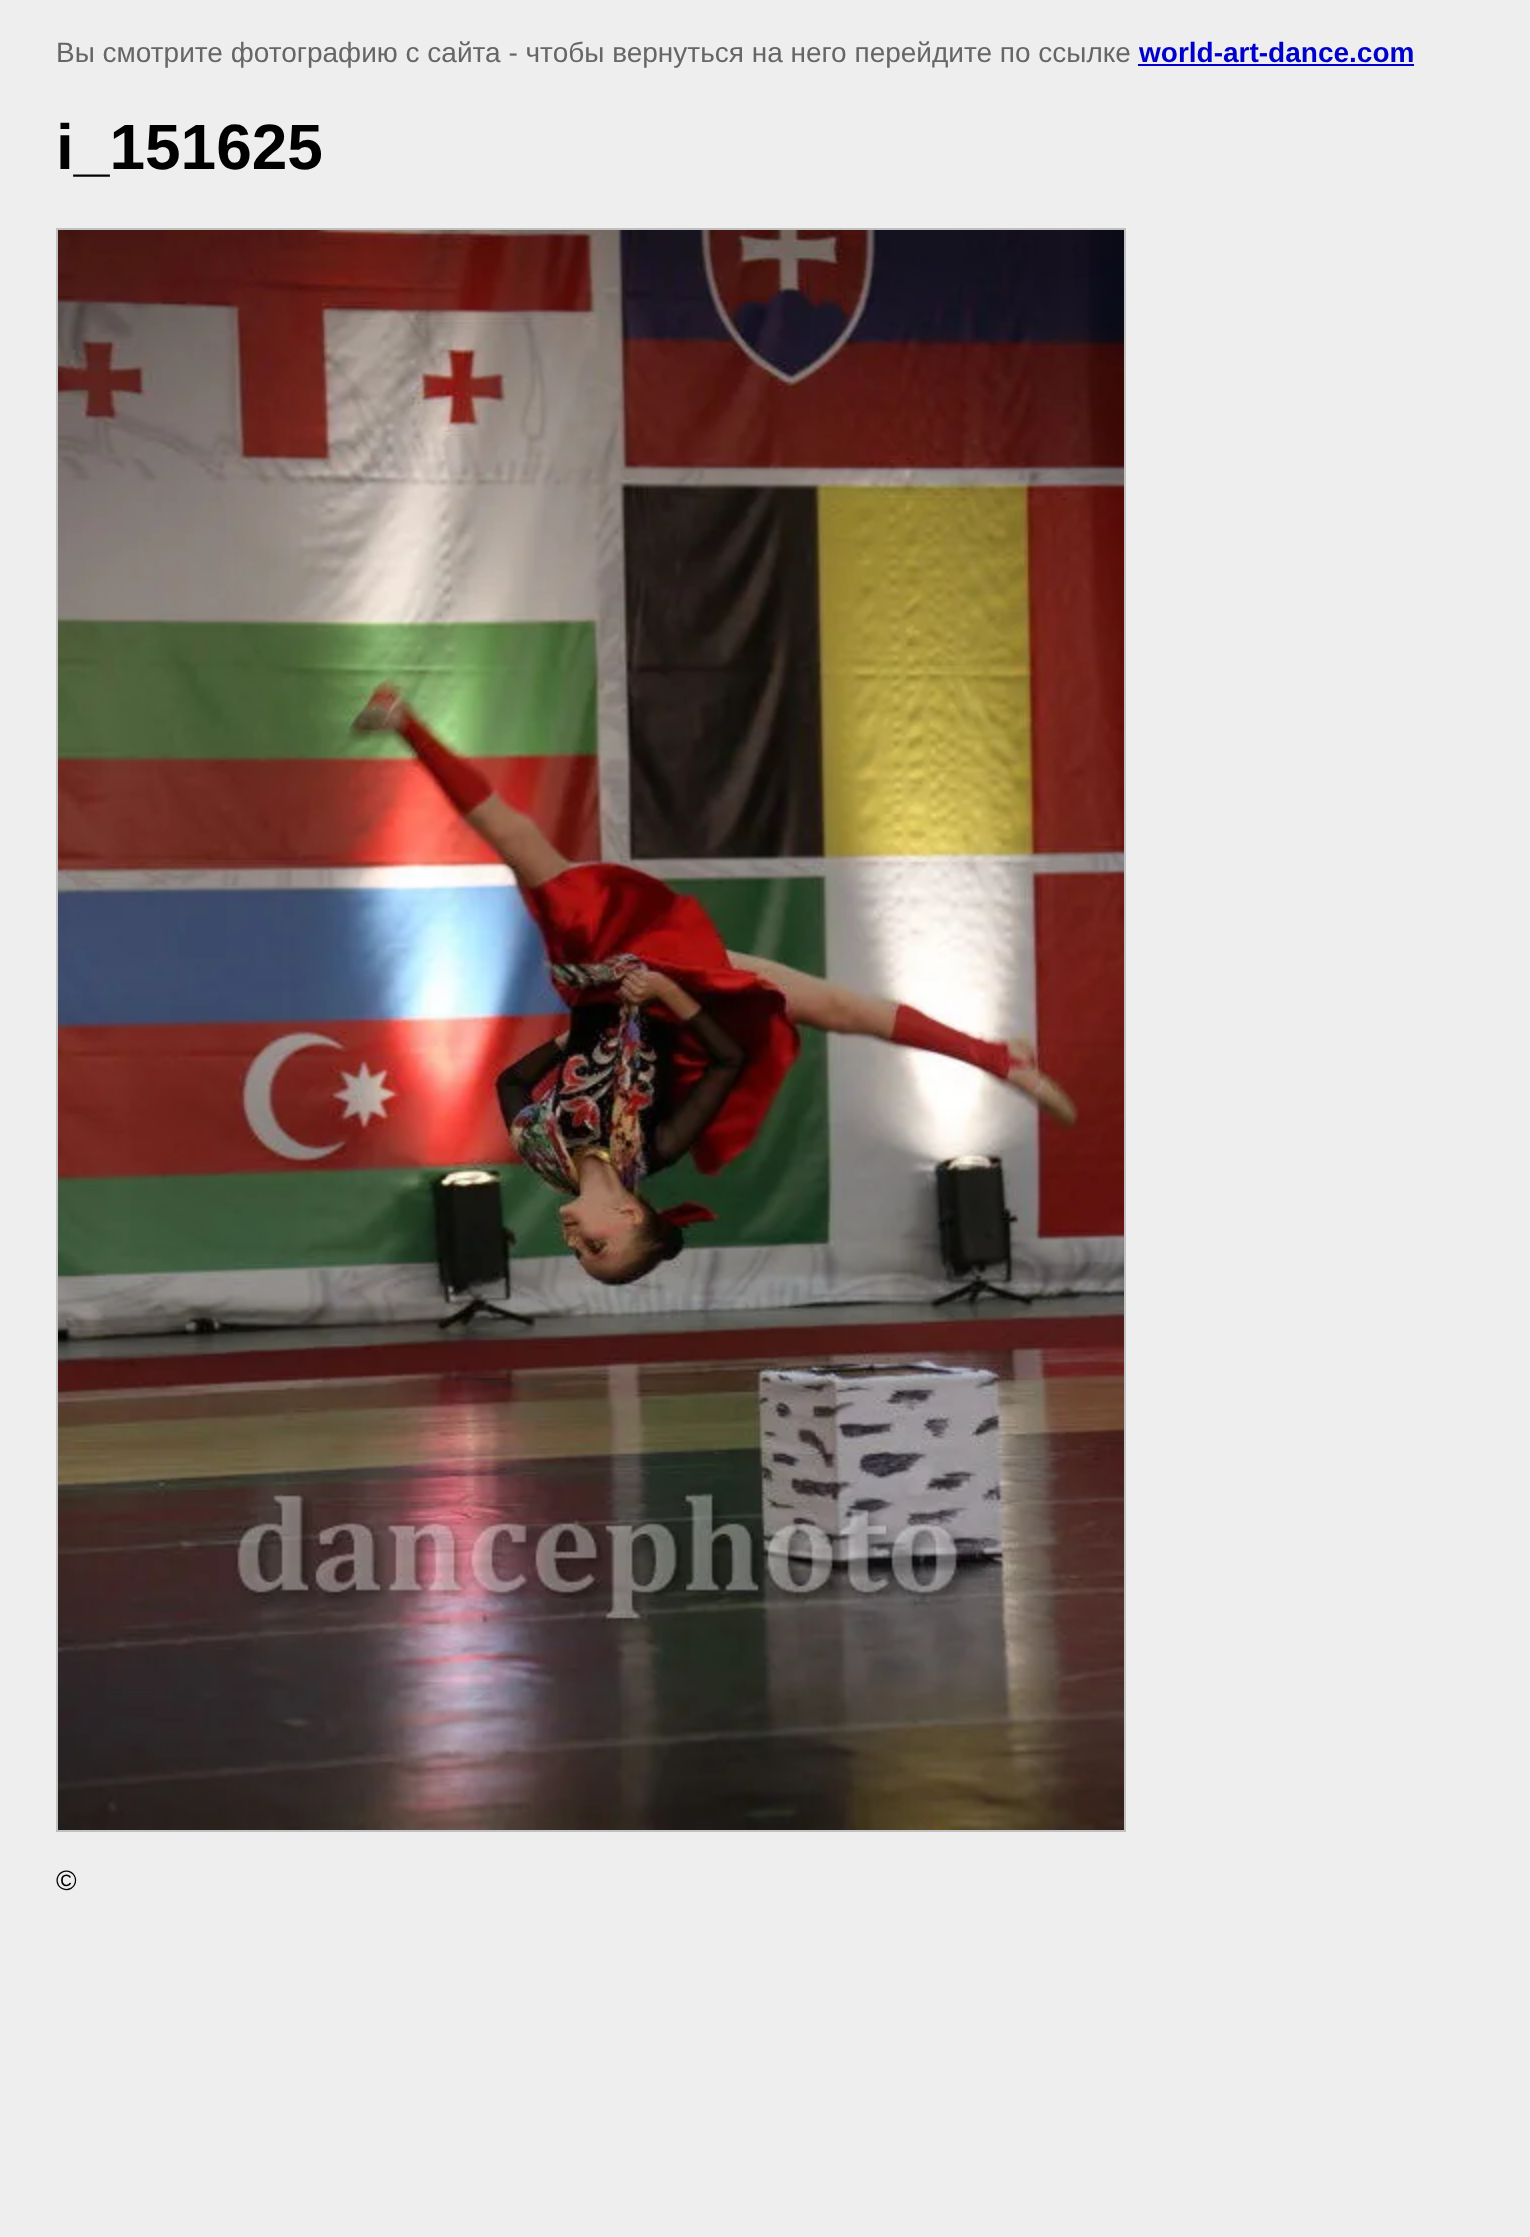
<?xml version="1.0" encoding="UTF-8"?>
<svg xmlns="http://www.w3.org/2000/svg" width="1530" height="2237">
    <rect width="100%" height="100%" fill="#EEEEEE"/>
    <text x="56" y="62" font-family="Liberation Sans" font-size="28" fill="#666666">Вы смотрите фотографию с сайта - чтобы вернуться на него перейдите по ссылке</text>
    <text x="1139" y="62" font-family="Liberation Sans" font-size="28" font-weight="700" fill="#0000CC">world-art-dance.com</text>
    <rect x="1138" y="64" width="276" height="2" fill="#0000CC"/>
    <text x="56" y="169" font-family="Liberation Sans" font-size="64" font-weight="700" fill="#000000">i_151625</text>
    <rect x="57" y="229" width="1068" height="1602" fill="none" stroke="#C0C0C0" stroke-width="2"/>
    <image x="58" y="230" width="1066" height="1600" href="img_01.png"/>
    <text x="56" y="1890" font-family="Liberation Sans" font-size="28" fill="#000000">©</text>
</svg>
